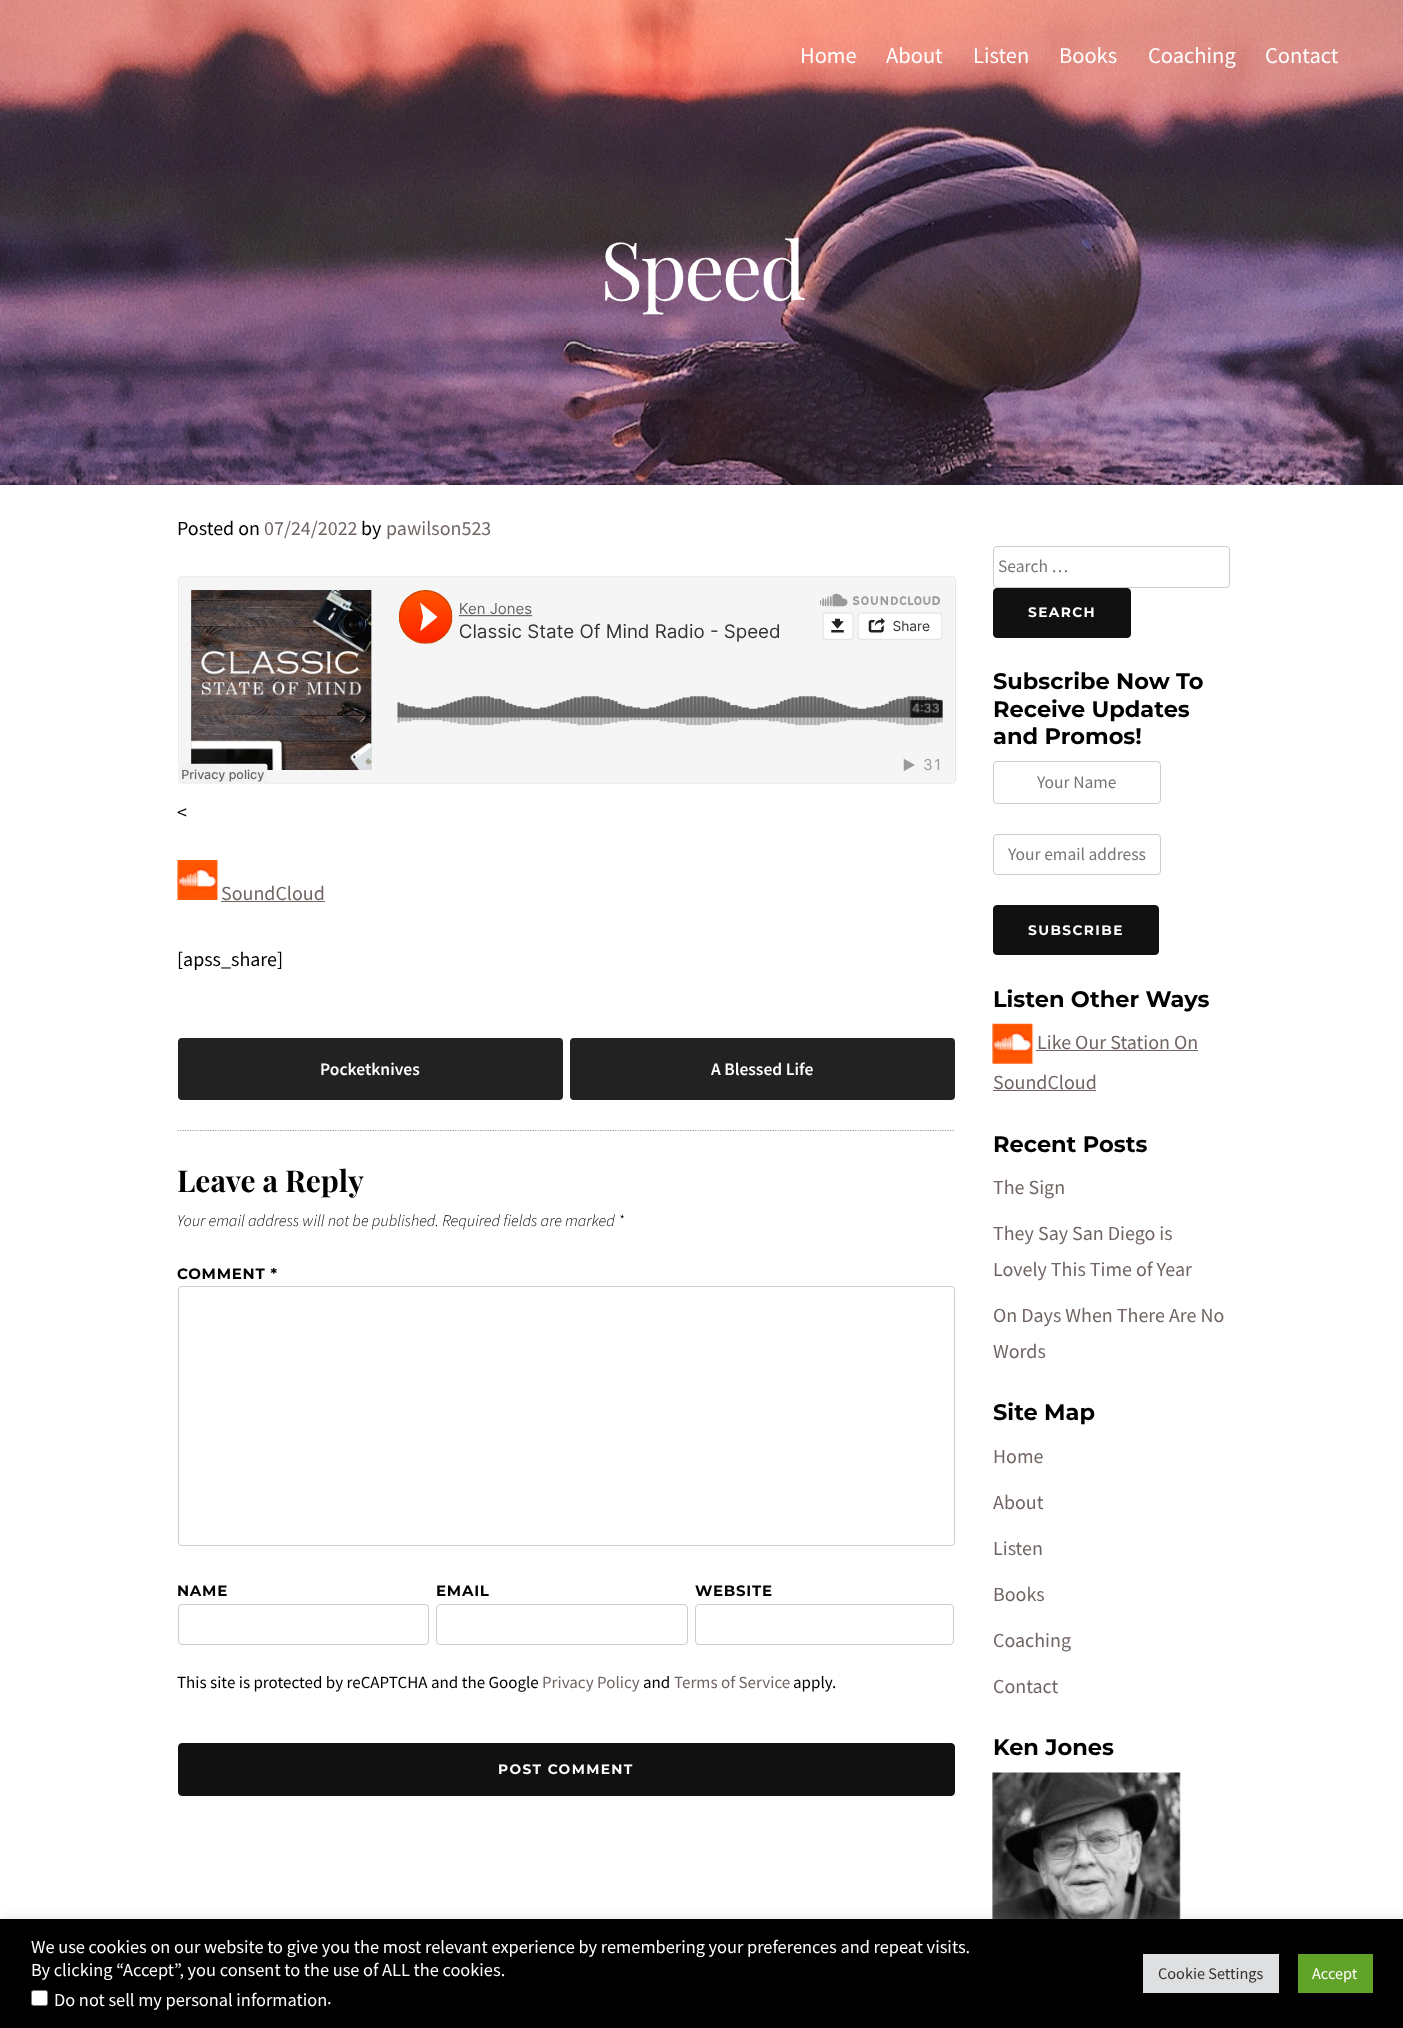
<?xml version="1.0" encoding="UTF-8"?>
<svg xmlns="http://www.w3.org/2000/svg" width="1403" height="2028">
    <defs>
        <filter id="blur1" x="-50%" y="-200%" width="200%" height="500%"><feGaussianBlur stdDeviation="6"/></filter>
    </defs>
    <rect width="100%" height="100%" fill="#FFFFFF"/>
    <image x="0" y="0" width="1403" height="485" href="img_01.png"/>
    <text x="800" y="63" font-family="Source Sans Pro" font-size="22.5" fill="#FFFFFF">Home</text>
    <text x="886" y="63" font-family="Source Sans Pro" font-size="22.5" fill="#FFFFFF">About</text>
    <text x="973" y="63" font-family="Source Sans Pro" font-size="22.5" fill="#FFFFFF">Listen</text>
    <text x="1059" y="63" font-family="Source Sans Pro" font-size="22.5" fill="#FFFFFF">Books</text>
    <text x="1148" y="63" font-family="Source Sans Pro" font-size="22.5" fill="#FFFFFF">Coaching</text>
    <text x="1265" y="63" font-family="Source Sans Pro" font-size="22.5" fill="#FFFFFF">Contact</text>
    <text x="600" y="300" font-family="Playfair Display" font-size="80" letter-spacing="-2.75" fill="#FFFFFF">Speed</text>
    <text x="177" y="535" font-family="Source Sans Pro" font-size="20" fill="#000000">Posted on</text>
    <text x="264" y="535" font-family="Source Sans Pro" font-size="20" fill="#706563">07/24/2022</text>
    <text x="361" y="535" font-family="Source Sans Pro" font-size="20" fill="#000000">by</text>
    <text x="386" y="535" font-family="Source Sans Pro" font-size="20" fill="#706563">pawilson523</text>
    <image x="178" y="576" width="778" height="208" href="img_02.png"/>
    <text x="177" y="819" font-family="Source Sans Pro" font-size="20" fill="#000000">&lt;</text>
    <image x="177" y="860" width="42" height="40" href="img_03.png"/>
    <text x="221" y="900" font-family="Source Sans Pro" font-size="20" fill="#706563">SoundCloud</text>
    <rect x="221" y="901" width="104" height="1" fill="#706563"/>
    <text x="177" y="966" font-family="Source Sans Pro" font-size="20" fill="#000000">[apss_share]</text>
    <rect x="178" y="1038" width="385" height="62" rx="4" fill="#222222"/>
    <text x="320" y="1075" font-family="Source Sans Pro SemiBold" font-size="17.5" font-weight="600" fill="#FFFFFF">Pocketknives</text>
    <rect x="570" y="1038" width="385" height="62" rx="4" fill="#222222"/>
    <text x="711" y="1075" font-family="Source Sans Pro SemiBold" font-size="17.5" font-weight="600" fill="#FFFFFF">A Blessed Life</text>
    <path d="M 177.5 1130.5 H 955" fill="none" stroke="#999999" stroke-width="1.2" stroke-dasharray="1.25 1.25"/>
    <text x="177" y="1192" font-family="Playfair Display" font-size="30" font-weight="700" fill="#000000">Leave a Reply</text>
    <text x="177" y="1226" font-family="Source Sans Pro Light" font-size="16.25" font-weight="300" font-style="italic" fill="#000000">Your email address will not be published. Required fields are marked *</text>
    <text x="177" y="1279" font-family="Montserrat" font-size="15" font-weight="100" letter-spacing="0.75" fill="#000000">COMMENT *</text>
    <rect x="178.5" y="1286.5" width="776" height="259" rx="3.5" fill="none" stroke="#CCCCCC"/>
    <text x="177" y="1596" font-family="Montserrat" font-size="15" font-weight="100" letter-spacing="0.75" fill="#000000">NAME</text>
    <rect x="178.5" y="1604.5" width="250" height="40" rx="3.5" fill="none" stroke="#CCCCCC"/>
    <text x="436" y="1596" font-family="Montserrat" font-size="15" font-weight="100" letter-spacing="0.75" fill="#000000">EMAIL</text>
    <rect x="436.5" y="1604.5" width="251" height="40" rx="3.5" fill="none" stroke="#CCCCCC"/>
    <text x="695" y="1596" font-family="Montserrat" font-size="15" font-weight="100" letter-spacing="0.75" fill="#000000">WEBSITE</text>
    <rect x="695.5" y="1604.5" width="258" height="40" rx="3.5" fill="none" stroke="#CCCCCC"/>
    <text x="177" y="1688" font-family="Source Sans Pro" font-size="17" fill="#000000">This site is protected by reCAPTCHA and the Google</text>
    <text x="542" y="1688" font-family="Source Sans Pro" font-size="17" fill="#706563">Privacy Policy</text>
    <text x="643" y="1688" font-family="Source Sans Pro" font-size="17" fill="#000000">and</text>
    <text x="674" y="1688" font-family="Source Sans Pro" font-size="17" fill="#706563">Terms of Service</text>
    <text x="793" y="1688" font-family="Source Sans Pro" font-size="17" fill="#000000">apply.</text>
    <rect x="178.5" y="1743.5" width="776" height="52" rx="3.5" fill="#111111" stroke="#111111"/>
    <text x="498" y="1774" font-family="Montserrat" font-size="13.75" font-weight="100" letter-spacing="1.4" fill="#FFFFFF">POST COMMENT</text>
    <rect x="993.5" y="546.5" width="236" height="41" rx="3.5" fill="none" stroke="#CCCCCC"/>
    <text x="998" y="572" font-family="Source Sans Pro" font-size="17.5" fill="#757575">Search …</text>
    <rect x="993.5" y="588.5" width="137" height="49" rx="3.5" fill="#111111" stroke="#111111"/>
    <text x="1028" y="617" font-family="Montserrat" font-size="13.75" font-weight="100" letter-spacing="1.4" fill="#FFFFFF">SEARCH</text>
    <text font-family="Montserrat" font-size="22.5" font-weight="100" fill="#000000">
        <tspan x="993" y="689">Subscribe Now To</tspan>
        <tspan x="993" y="717">Receive Updates</tspan>
        <tspan x="993" y="744">and Promos!</tspan>
    </text>
    <rect x="993.5" y="761.5" width="167" height="42" rx="3.5" fill="none" stroke="#CCCCCC"/>
    <text x="1037" y="788" font-family="Source Sans Pro" font-size="17.5" fill="#757575">Your Name</text>
    <rect x="993.5" y="834.5" width="167" height="40" rx="3.5" fill="none" stroke="#CCCCCC"/>
    <text x="1008" y="860" font-family="Source Sans Pro" font-size="17.5" fill="#757575">Your email address</text>
    <rect x="993.5" y="905.5" width="165" height="49" rx="3.5" fill="#111111" stroke="#111111"/>
    <text x="1028" y="935" font-family="Montserrat" font-size="13.75" font-weight="100" letter-spacing="1.4" fill="#FFFFFF">SUBSCRIBE</text>
    <text x="993" y="1007" font-family="Montserrat" font-size="22.5" font-weight="100" fill="#000000">Listen Other Ways</text>
    <image x="992" y="1023" width="42" height="41" href="img_04.png"/>
    <text x="1037" y="1049" font-family="Source Sans Pro" font-size="20" fill="#706563">Like Our Station On</text>
    <rect x="1036" y="1050" width="162" height="1" fill="#706563"/>
    <text x="993" y="1089" font-family="Source Sans Pro" font-size="20" fill="#706563">SoundCloud</text>
    <rect x="993" y="1090" width="103" height="1" fill="#706563"/>
    <text x="993" y="1152" font-family="Montserrat" font-size="22.5" font-weight="100" fill="#000000">Recent Posts</text>
    <text x="993" y="1194" font-family="Source Sans Pro" font-size="20" fill="#706563">The Sign</text>
    <text font-family="Source Sans Pro" font-size="20" fill="#706563">
        <tspan x="993" y="1240">They Say San Diego is</tspan>
        <tspan x="993" y="1276">Lovely This Time of Year</tspan>
    </text>
    <text font-family="Source Sans Pro" font-size="20" fill="#706563">
        <tspan x="993" y="1322">On Days When There Are No</tspan>
        <tspan x="993" y="1358">Words</tspan>
    </text>
    <text x="993" y="1420" font-family="Montserrat" font-size="22.5" font-weight="100" fill="#000000">Site Map</text>
    <text x="993" y="1463" font-family="Source Sans Pro" font-size="20" fill="#706563">Home</text>
    <text x="993" y="1509" font-family="Source Sans Pro" font-size="20" fill="#706563">About</text>
    <text x="993" y="1555" font-family="Source Sans Pro" font-size="20" fill="#706563">Listen</text>
    <text x="993" y="1601" font-family="Source Sans Pro" font-size="20" fill="#706563">Books</text>
    <text x="993" y="1647" font-family="Source Sans Pro" font-size="20" fill="#706563">Coaching</text>
    <text x="993" y="1693" font-family="Source Sans Pro" font-size="20" fill="#706563">Contact</text>
    <text x="993" y="1755" font-family="Montserrat" font-size="22.5" font-weight="100" fill="#000000">Ken Jones</text>
    <image x="992" y="1772" width="189" height="147" href="img_05.png"/>
    <rect x="0" y="1918" width="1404" height="110" fill="#ACABAB" fill-opacity="0.3" filter="url(#blur1)"/>
    <rect x="0" y="1919" width="1403" height="109" fill="#000000"/>
    <text font-family="Source Sans Pro" font-size="18.33" fill="#FFFFFF">
        <tspan x="31" y="1953">We use cookies on our website to give you the most relevant experience by remembering your preferences and repeat visits.</tspan>
        <tspan x="31" y="1976">By clicking “Accept”, you consent to the use of ALL the cookies.</tspan>
    </text>
    <rect x="31.5" y="1990.5" width="16" height="15" rx="2" fill="#FFFFFF" stroke="#767676"/>
    <text x="54" y="2006" font-family="Source Sans Pro" font-size="18.33" fill="#FFFFFF">Do not sell my personal information</text>
    <text x="327" y="2004" font-family="Source Sans Pro" font-size="18.33" fill="#FFFFFF">.</text>
    <rect x="1143" y="1954" width="136" height="39" fill="#DEDFE0"/>
    <text x="1158" y="1979" font-family="Source Sans Pro" font-size="16.25" fill="#333333">Cookie Settings</text>
    <rect x="1298" y="1954" width="75" height="39" fill="#61A229"/>
    <text x="1312" y="1979" font-family="Source Sans Pro" font-size="16.25" fill="#FFFFFF">Accept</text>
</svg>
